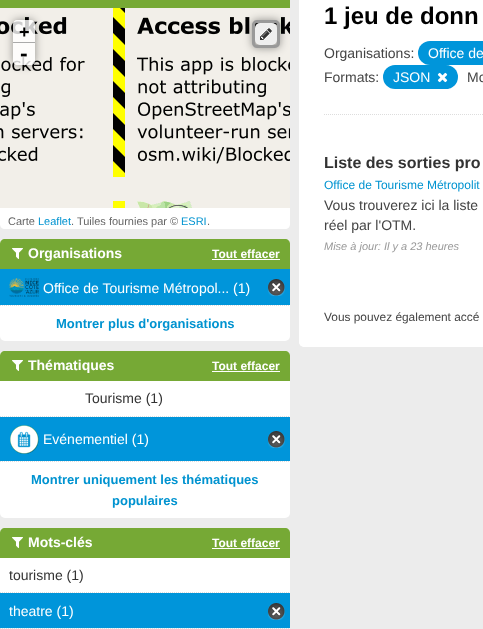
<?xml version="1.0" encoding="UTF-8"?>
<svg xmlns="http://www.w3.org/2000/svg" width="483" height="629">
    <defs>
        <clipPath id="clip1"><path d="M 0 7 H 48 V 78 H 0 Z M 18 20 H 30 C 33 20 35 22 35 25 V 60 C 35 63 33 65 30 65 H 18 C 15 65 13 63 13 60 V 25 C 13 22 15 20 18 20 Z" clip-rule="evenodd"/></clipPath>
        <filter id="blur1" x="-50%" y="-200%" width="200%" height="500%"><feGaussianBlur stdDeviation="4"/></filter>
    </defs>
    <rect width="100%" height="100%" fill="#ECECEC"/>
    <path d="M 6 -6 H 284 C 287.5 -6 290 -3.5 290 0 V 224 C 290 227 288 229 285 229 H 5 C 2 229 0 227 0 224 V 0 C 0 -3.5 2.5 -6 6 -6 Z" fill="#FFFFFF"/>
    <rect x="0" y="0" width="290" height="8" fill="#76A935"/>
    <image x="0" y="8" width="105" height="185" href="img_01.png"/>
    <image x="105" y="8" width="185" height="185" href="img_02.png"/>
    <rect x="0" y="193" width="105" height="15" fill="#F2EFE9"/>
    <image x="105" y="193" width="185" height="15" href="img_03.png"/>
    <g clip-path="url(#clip1)">
        <rect x="13" y="20" width="22" height="45" rx="5" fill="#000000" fill-opacity="0.4" filter="url(#blur1)"/>
    </g>
    <path d="M 17 20 H 31 C 33 20 35 22 35 24 V 43 H 13 V 24 C 13 22 15 20 17 20 Z" fill="#FFFFFF" fill-opacity="0.8"/>
    <rect x="13" y="42" width="22" height="1" fill="#AAAAAA"/>
    <text x="19" y="38" font-family="Liberation Sans" font-size="18" font-weight="700" fill="#000000">+</text>
    <path d="M 13 43 H 35 V 61 C 35 63 33 65 31 65 H 17 C 15 65 13 63 13 61 Z" fill="#FFFFFF" fill-opacity="0.8"/>
    <text x="20" y="61" font-family="Liberation Sans" font-size="23" font-weight="700" fill="#000000">-</text>
    <rect x="252" y="20" width="28" height="28" rx="5" fill="#000000" fill-opacity="0.4" filter="url(#blur1)"/>
    <rect x="253.5" y="21.5" width="25" height="25" rx="3.5" fill="none" stroke="#999999" stroke-width="3"/>
    <rect x="255" y="23" width="22" height="22" rx="5" fill="#EEEEEE"/>
    <image x="260" y="28" width="12" height="12" href="img_04.png"/>
    <text x="8" y="225" font-family="Liberation Sans" font-size="11" fill="#666666">Carte</text>
    <text x="38" y="225" font-family="Liberation Sans" font-size="11" fill="#0093D0">Leaflet</text>
    <text x="71" y="225" font-family="Liberation Sans" font-size="11" fill="#666666">. Tuiles fournies par ©</text>
    <text x="181" y="225" font-family="Liberation Sans" font-size="11" fill="#0093D0">ESRI</text>
    <text x="207" y="225" font-family="Liberation Sans" font-size="11" fill="#666666">.</text>
    <rect x="0" y="239" width="290" height="102" rx="5" fill="#FFFFFF"/>
    <path d="M 5 239 H 285 C 288 239 290 241 290 244 V 269 H 0 V 244 C 0 241 2 239 5 239 Z" fill="#76A935"/>
    <image x="12" y="248" width="11" height="11" href="img_05.png"/>
    <text x="28" y="258" font-family="Liberation Sans" font-size="14" font-weight="700" fill="#FFFFFF">Organisations</text>
    <text x="212" y="258" font-family="Liberation Sans" font-size="12" font-weight="700" fill="#FFFFFF">Tout effacer</text>
    <rect x="212" y="259" width="68" height="1" fill="#FFFFFF"/>
    <rect x="0" y="269" width="290" height="36" fill="#0095DA"/>
    <image x="9" y="278" width="30" height="19" href="img_06.png"/>
    <text x="43" y="293" font-family="Liberation Sans" font-size="14" fill="#FFFFFF">Office de Tourisme Métropol... (1)</text>
    <image x="268" y="279" width="17" height="17" href="img_07.png"/>
    <path d="M 0 305.5 H 290" fill="none" stroke="#DDDDDD" stroke-dasharray="1 1"/>
    <text x="56" y="328" font-family="Liberation Sans" font-size="13" font-weight="700" fill="#0093D0">Montrer plus d'organisations</text>
    <rect x="0" y="351" width="290" height="167" rx="5" fill="#FFFFFF"/>
    <path d="M 5 351 H 285 C 288 351 290 353 290 356 V 381 H 0 V 356 C 0 353 2 351 5 351 Z" fill="#76A935"/>
    <image x="12" y="360" width="11" height="11" href="img_05.png"/>
    <text x="28" y="370" font-family="Liberation Sans" font-size="14" font-weight="700" fill="#FFFFFF">Thématiques</text>
    <text x="212" y="370" font-family="Liberation Sans" font-size="12" font-weight="700" fill="#FFFFFF">Tout effacer</text>
    <rect x="212" y="371" width="68" height="1" fill="#FFFFFF"/>
    <path d="M 0 416.5 H 290" fill="none" stroke="#DDDDDD" stroke-dasharray="1 1"/>
    <text x="85" y="403" font-family="Liberation Sans" font-size="14" fill="#333333">Tourisme (1)</text>
    <rect x="0" y="417" width="290" height="44" fill="#0095DA"/>
    <image x="10" y="425" width="29" height="29" href="img_08.png"/>
    <text x="43" y="444" font-family="Liberation Sans" font-size="14" fill="#FFFFFF">Evénementiel (1)</text>
    <image x="268" y="431" width="17" height="17" href="img_07.png"/>
    <path d="M 0 461.5 H 290" fill="none" stroke="#DDDDDD" stroke-dasharray="1 1"/>
    <text x="31" y="484" font-family="Liberation Sans" font-size="13" font-weight="700" fill="#0093D0">Montrer uniquement les thématiques</text>
    <text x="112" y="505" font-family="Liberation Sans" font-size="13" font-weight="700" fill="#0093D0">populaires</text>
    <rect x="0" y="528" width="290" height="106" rx="5" fill="#FFFFFF"/>
    <path d="M 5 528 H 285 C 288 528 290 530 290 533 V 558 H 0 V 533 C 0 530 2 528 5 528 Z" fill="#76A935"/>
    <image x="12" y="537" width="11" height="11" href="img_05.png"/>
    <text x="28" y="547" font-family="Liberation Sans" font-size="14" font-weight="700" fill="#FFFFFF">Mots-clés</text>
    <text x="212" y="547" font-family="Liberation Sans" font-size="12" font-weight="700" fill="#FFFFFF">Tout effacer</text>
    <rect x="212" y="548" width="68" height="1" fill="#FFFFFF"/>
    <path d="M 0 592.5 H 290" fill="none" stroke="#DDDDDD" stroke-dasharray="1 1"/>
    <text x="9" y="580" font-family="Liberation Sans" font-size="14" fill="#333333">tourisme (1)</text>
    <rect x="1" y="628" width="289" height="1" fill="#F6F6F6"/>
    <path d="M 0 628.5 H 290" fill="none" stroke="#DDDDDD" stroke-dasharray="1 1"/>
    <rect x="0" y="593" width="290" height="35" fill="#0095DA"/>
    <text x="9" y="616" font-family="Liberation Sans" font-size="14" fill="#FFFFFF">theatre (1)</text>
    <image x="268" y="603" width="17" height="17" href="img_07.png"/>
    <rect x="299" y="-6" width="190" height="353" rx="6" fill="#FFFFFF"/>
    <path d="M 324 114.5 H 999" fill="none" stroke="#DDDDDD" stroke-dasharray="1 1"/>
    <text x="324" y="24" font-family="Liberation Sans" font-size="24" font-weight="700" fill="#000000">1 jeu de donn</text>
    <text x="324" y="58" font-family="Liberation Sans" font-size="14" fill="#444444">Organisations:</text>
    <rect x="418" y="41" width="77" height="24" rx="12" fill="#0095DA"/>
    <text x="428" y="58" font-family="Liberation Sans" font-size="14" fill="#FFFFFF">Office de</text>
    <text x="324" y="82" font-family="Liberation Sans" font-size="14" fill="#444444">Formats:</text>
    <rect x="383" y="65" width="75" height="24" rx="12" fill="#0095DA"/>
    <text x="393" y="82" font-family="Liberation Sans" font-size="14" fill="#FFFFFF">JSON</text>
    <image x="437" y="72" width="11" height="11" href="img_09.png"/>
    <text x="467" y="82" font-family="Liberation Sans" font-size="14" fill="#444444">Mo</text>
    <text x="324" y="168" font-family="Liberation Sans" font-size="16" font-weight="700" fill="#333333">Liste des sorties pro</text>
    <text x="324" y="189" font-family="Liberation Sans" font-size="12" fill="#0093D0">Office de Tourisme Métropolit</text>
    <text font-family="Liberation Sans" font-size="14" fill="#444444">
        <tspan x="324" y="210">Vous trouverez ici la liste</tspan>
        <tspan x="324" y="230">réel par l'OTM.</tspan>
    </text>
    <text x="324" y="250" font-family="Liberation Sans" font-size="11" font-style="italic" fill="#999999">Mise à jour: Il y a 23 heures</text>
    <rect x="299" y="286" width="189" height="61" rx="5" fill="#FFFFFF"/>
    <text x="324" y="321" font-family="Liberation Sans" font-size="11.9" fill="#444444">Vous pouvez également accé</text>
</svg>
